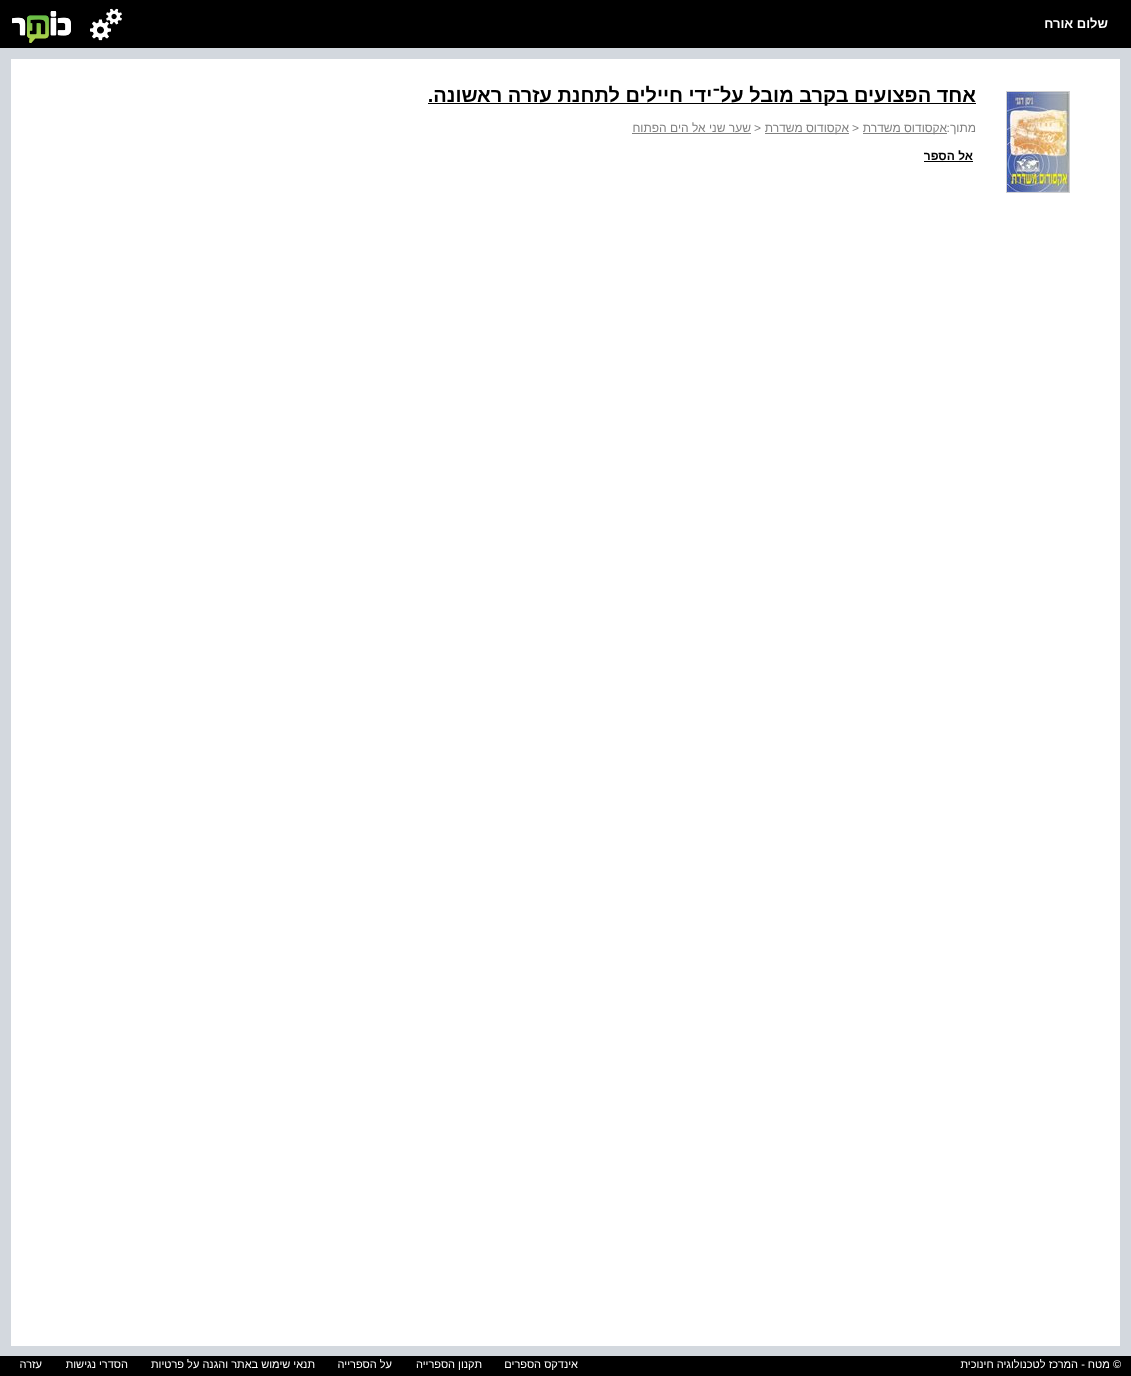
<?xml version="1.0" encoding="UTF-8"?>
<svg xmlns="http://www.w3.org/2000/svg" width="1131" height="1376">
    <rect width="100%" height="100%" fill="#D3D8DE"/>
    <rect x="0" y="0" width="1131" height="48" fill="#000000"/>
    <text x="1108" y="28" font-family="Liberation Sans" font-size="13" font-weight="700" direction="rtl" fill="#FFFFFF">שלום אורח</text>
    <image x="90" y="8" width="32" height="33" href="img_01.png"/>
    <image x="12" y="11" width="59" height="32" href="img_02.png"/>
    <rect x="11" y="59" width="1109" height="1287" fill="#FFFFFF"/>
    <rect x="1006.5" y="91.5" width="63" height="101" fill="none" stroke="#D1D1D1"/>
    <image x="1007" y="92" width="62" height="100" href="img_03.png"/>
    <rect x="428" y="103" width="548" height="1" fill="#000000"/>
    <text x="976" y="102" font-family="Liberation Sans" font-size="20" font-weight="700" direction="rtl" fill="#000000">אחד הפצועים בקרב מובל על־ידי חיילים לתחנת עזרה ראשונה.</text>
    <text x="976" y="132" font-family="Liberation Sans" font-size="12" direction="rtl" fill="#808080">מתוך:</text>
    <rect x="863" y="133" width="84" height="1" fill="#808080"/>
    <text x="947" y="132" font-family="Liberation Sans" font-size="12" direction="rtl" fill="#808080">אקסודוס משדרת</text>
    <text x="852" y="132" font-family="Liberation Sans" font-size="12" fill="#808080">&gt;</text>
    <rect x="765" y="133" width="84" height="1" fill="#808080"/>
    <text x="849" y="132" font-family="Liberation Sans" font-size="12" direction="rtl" fill="#808080">אקסודוס משדרת</text>
    <text x="754" y="132" font-family="Liberation Sans" font-size="12" fill="#808080">&gt;</text>
    <text x="751" y="132" font-family="Liberation Sans" font-size="12" direction="rtl" fill="#808080">שער שני אל הים הפתוח</text>
    <rect x="632" y="133" width="119" height="1" fill="#808080"/>
    <text x="973" y="160" font-family="Liberation Sans" font-size="12" font-weight="700" direction="rtl" fill="#000000">אל הספר</text>
    <rect x="924" y="161" width="49" height="1" fill="#000000"/>
    <rect x="0" y="1356" width="1131" height="20" fill="#000000"/>
    <text x="1121" y="1368" font-family="Liberation Sans" font-size="11" direction="rtl" fill="#FFFFFF">© מטח - המרכז לטכנולוגיה חינוכית</text>
    <text x="578" y="1368" font-family="Liberation Sans" font-size="11" direction="rtl" fill="#FFFFFF">אינדקס הספרים</text>
    <text x="482" y="1368" font-family="Liberation Sans" font-size="11" direction="rtl" fill="#FFFFFF">תקנון הספרייה</text>
    <text x="392" y="1368" font-family="Liberation Sans" font-size="11" direction="rtl" fill="#FFFFFF">על הספרייה</text>
    <text x="315" y="1368" font-family="Liberation Sans" font-size="11" direction="rtl" fill="#FFFFFF">תנאי שימוש באתר והגנה על פרטיות</text>
    <text x="128" y="1368" font-family="Liberation Sans" font-size="11" direction="rtl" fill="#FFFFFF">הסדרי נגישות</text>
    <text x="42" y="1368" font-family="Liberation Sans" font-size="11" direction="rtl" fill="#FFFFFF">עזרה</text>
</svg>
